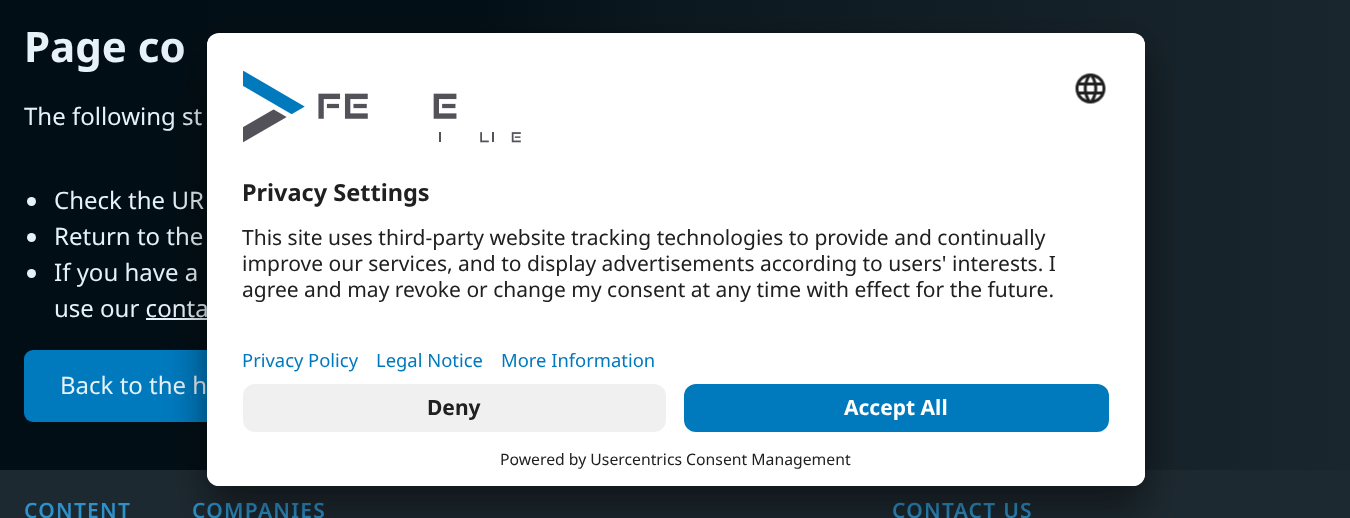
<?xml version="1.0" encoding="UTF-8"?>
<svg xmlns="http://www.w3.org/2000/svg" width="1350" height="518">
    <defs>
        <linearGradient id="g1" gradientUnits="userSpaceOnUse" x1="0" y1="195" x2="1350" y2="195"><stop offset="0" stop-color="#020E15"/><stop offset="0.35" stop-color="#030F16"/><stop offset="0.5" stop-color="#0C181F"/><stop offset="1" stop-color="#1A262D"/></linearGradient>
        <filter id="blur1" x="-50%" y="-200%" width="200%" height="500%"><feGaussianBlur stdDeviation="21"/></filter>
        <filter id="blur2" x="-50%" y="-200%" width="200%" height="500%"><feGaussianBlur stdDeviation="19.5"/></filter>
        <clipPath id="clip1"><rect x="207" y="33" width="938" height="453" rx="12"/></clipPath>
        <clipPath id="clip2"><path d="M 219 33 H 1133 C 1139.5 33 1145 38.5 1145 45 V 372 H 207 V 45 C 207 38.5 212.5 33 219 33 Z"/></clipPath>
    </defs>
    <rect width="100%" height="100%" fill="#1D2930"/>
    <rect x="0" y="0" width="1350" height="470" fill="url(#g1)"/>
    <text x="24" y="62" font-family="Noto Sans" font-size="42" font-weight="700" fill="#E6F2F8">Page co</text>
    <text x="24" y="125" font-family="Noto Sans" font-size="24" fill="#E6F2F8">The following st</text>
    <circle cx="31.5" cy="201.5" r="4.5" fill="#E6F2F8"/>
    <text x="54" y="209" font-family="Noto Sans" font-size="24" fill="#E6F2F8">Check the UR</text>
    <circle cx="31.5" cy="237.5" r="4.5" fill="#E6F2F8"/>
    <text x="54" y="245" font-family="Noto Sans" font-size="24" fill="#E6F2F8">Return to the</text>
    <circle cx="31.5" cy="273.5" r="4.5" fill="#E6F2F8"/>
    <text font-family="Noto Sans" font-size="24" fill="#E6F2F8">
        <tspan x="54" y="281">If you have a</tspan>
        <tspan x="54" y="317">use our conta</tspan>
    </text>
    <rect x="146" y="318" width="61" height="2" fill="#E6F2F8"/>
    <rect x="24" y="350" width="362" height="72" rx="9" fill="#0079BD"/>
    <text x="60" y="394" font-family="Noto Sans" font-size="24" fill="#E6F2F8">Back to the h</text>
    <text x="24" y="518" font-family="Noto Sans" font-size="21" font-weight="600" letter-spacing="1.25" fill="#2E91C9">CONTENT</text>
    <text x="192" y="518" font-family="Noto Sans" font-size="21" font-weight="600" letter-spacing="1.25" fill="#2E91C9">COMPANIES</text>
    <text x="892" y="518" font-family="Noto Sans" font-size="21" font-weight="600" letter-spacing="1.25" fill="#2E91C9">CONTACT US</text>
    <rect x="207" y="63" width="938" height="453" rx="12" fill="#000000" fill-opacity="0.3" filter="url(#blur1)"/>
    <rect x="207" y="41" width="938" height="453" rx="12" fill="#000000" fill-opacity="0.22" filter="url(#blur2)"/>
    <rect x="207" y="33" width="938" height="453" rx="12" fill="#FFFFFF"/>
    <g clip-path="url(#clip1)">
        <g clip-path="url(#clip2)">
            <rect x="207" y="35" width="938" height="337" fill="#FFFFFF"/>
        </g>
    </g>
    <image x="243" y="71" width="278" height="72" href="img_01.png"/>
    <image x="1075" y="73" width="31" height="31" href="img_02.png"/>
    <text x="242" y="201" font-family="Noto Sans" font-size="23.5" font-weight="700" fill="#202020">Privacy Settings</text>
    <text font-family="Noto Sans" font-size="21" fill="#202020">
        <tspan x="242" y="245">This site uses third-party website tracking technologies to provide and continually</tspan>
        <tspan x="242" y="271">improve our services, and to display advertisements according to users' interests. I</tspan>
        <tspan x="242" y="297">agree and may revoke or change my consent at any time with effect for the future.</tspan>
    </text>
    <text x="242" y="367" font-family="Noto Sans" font-size="18.4" fill="#0079BD">Privacy Policy</text>
    <text x="376" y="367" font-family="Noto Sans" font-size="18.4" fill="#0079BD">Legal Notice</text>
    <text x="501" y="367" font-family="Noto Sans" font-size="18.4" fill="#0079BD">More Information</text>
    <path d="M 207 372 H 1145 V 474 C 1145 480.5 1139.5 486 1133 486 H 219 C 212.5 486 207 480.5 207 474 Z" fill="#FFFFFF"/>
    <rect x="243" y="384" width="423" height="48" rx="12" fill="#F0F0F0"/>
    <text x="427" y="415" font-family="Noto Sans" font-size="21" font-weight="700" fill="#202020">Deny</text>
    <rect x="684" y="384" width="425" height="48" rx="12" fill="#0079BD"/>
    <text x="844" y="415" font-family="Noto Sans" font-size="21" font-weight="700" fill="#FFFFFF">Accept All</text>
    <text x="500" y="465" font-family="Noto Sans" font-size="15.75" fill="#202020">Powered by Usercentrics Consent Management</text>
</svg>
